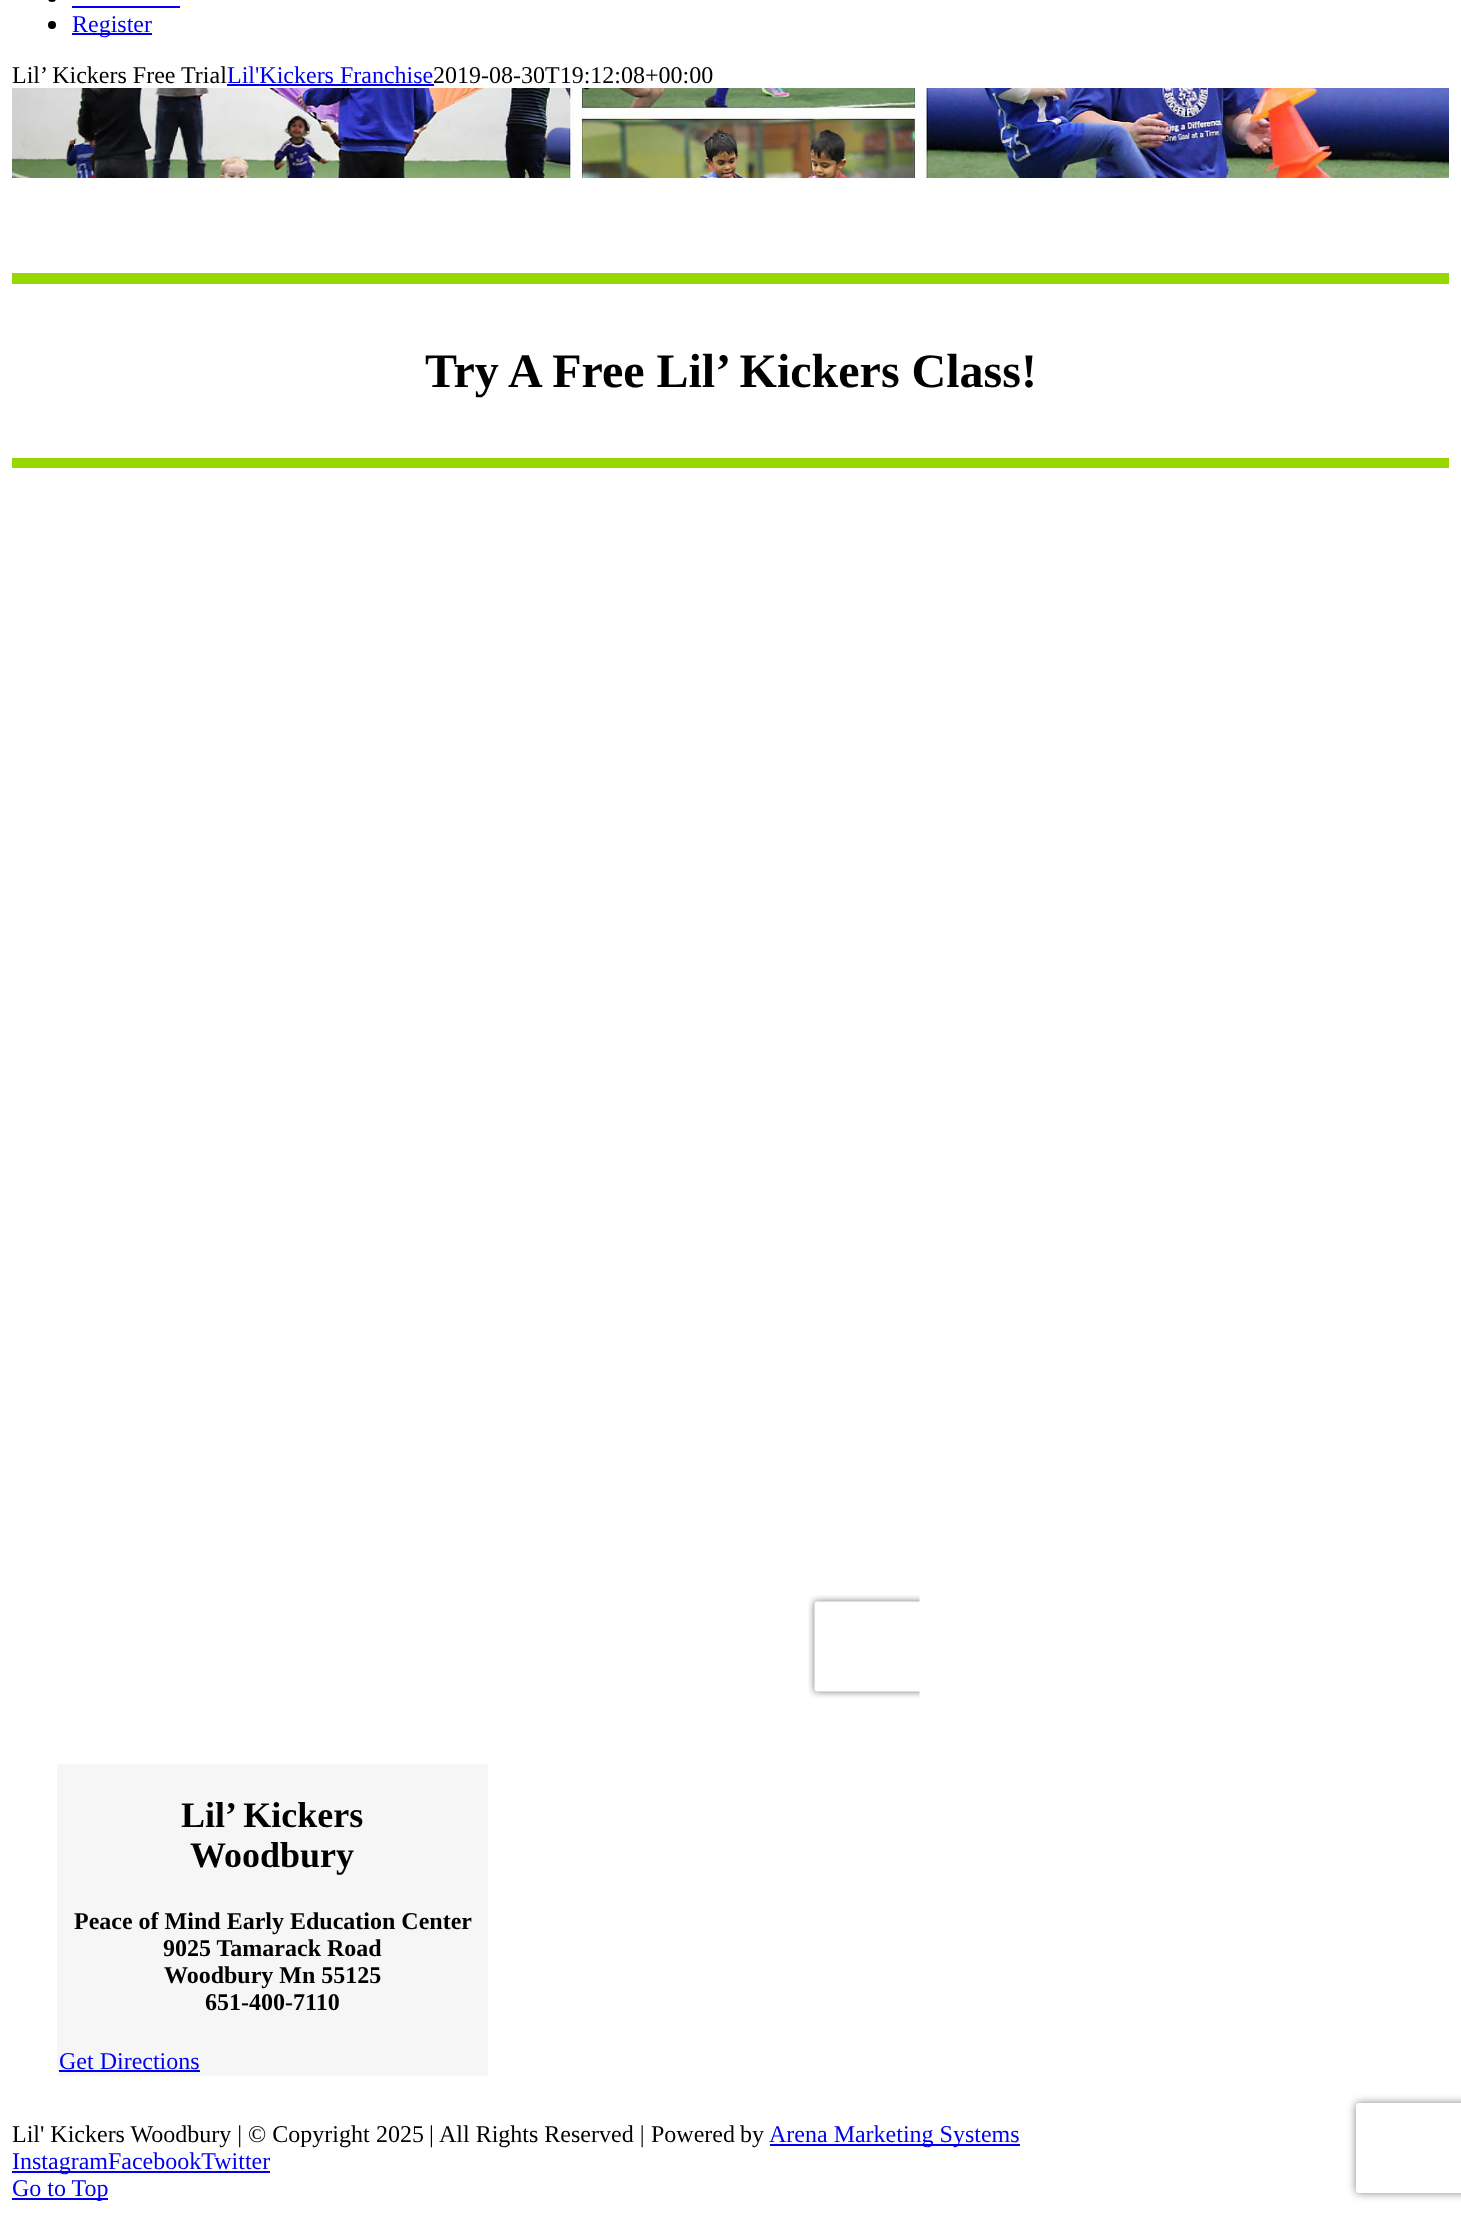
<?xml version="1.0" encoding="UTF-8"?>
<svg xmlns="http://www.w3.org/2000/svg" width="1461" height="2214">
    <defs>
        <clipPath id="clip1"><path d="M 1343 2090 H 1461 V 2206 H 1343 Z M 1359 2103 H 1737 C 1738.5 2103 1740 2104.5 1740 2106 V 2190 C 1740 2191.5 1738.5 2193 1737 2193 H 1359 C 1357.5 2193 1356 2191.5 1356 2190 V 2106 C 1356 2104.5 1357.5 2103 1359 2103 Z" clip-rule="evenodd"/></clipPath>
        <filter id="blur1" x="-50%" y="-200%" width="200%" height="500%"><feGaussianBlur stdDeviation="4"/></filter>
    </defs>
    <rect width="100%" height="100%" fill="#FFFFFF"/>
    <rect x="48" y="-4" width="8" height="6" rx="4" fill="#000000"/>
    <rect x="72" y="6" width="108" height="2" fill="#0000EE"/>
    <circle cx="52" cy="25" r="4" fill="#000000"/>
    <rect x="72" y="33" width="80" height="2" fill="#0000EE"/>
    <text x="72" y="32" font-family="Liberation Serif" font-size="24" fill="#0000EE">Register</text>
    <text x="12" y="83" font-family="Liberation Serif" font-size="24" fill="#000000">Lil’ Kickers Free Trial</text>
    <text x="227" y="83" font-family="Liberation Serif" font-size="24" fill="#0000EE">Lil'Kickers Franchise</text>
    <rect x="227" y="84" width="207" height="2" fill="#0000EE"/>
    <text x="433" y="83" font-family="Liberation Serif" font-size="24" fill="#000000">2019-08-30T19:12:08+00:00</text>
    <image x="12" y="88" width="1437" height="90" href="img_01.png"/>
    <rect x="12" y="273" width="1437" height="11" fill="#97D700"/>
    <rect x="12" y="458" width="1437" height="10" fill="#97D700"/>
    <text x="425" y="387" font-family="Liberation Serif" font-size="48" font-weight="700" fill="#000000">Try A Free Lil’ Kickers Class!</text>
    <image x="808" y="1595" width="112" height="103" href="img_02.png"/>
    <rect x="57" y="1764" width="431" height="312" fill="#F6F6F6"/>
    <text x="181" y="1827" font-family="Liberation Serif" font-size="36" font-weight="700" fill="#000000">Lil’ Kickers</text>
    <text x="190" y="1867" font-family="Liberation Serif" font-size="36" font-weight="700" fill="#000000">Woodbury</text>
    <text x="74" y="1929" font-family="Liberation Serif" font-size="24" font-weight="700" fill="#000000">Peace of Mind Early Education Center</text>
    <text x="163" y="1956" font-family="Liberation Serif" font-size="24" font-weight="700" fill="#000000">9025 Tamarack Road</text>
    <text x="164" y="1983" font-family="Liberation Serif" font-size="24" font-weight="700" fill="#000000">Woodbury Mn 55125</text>
    <text x="205" y="2010" font-family="Liberation Serif" font-size="24" font-weight="700" fill="#000000">651-400-7110</text>
    <text x="59" y="2069" font-family="Liberation Serif" font-size="24" fill="#0000EE">Get Directions</text>
    <rect x="59" y="2070" width="141" height="2" fill="#0000EE"/>
    <text x="12" y="2142" font-family="Liberation Serif" font-size="24" fill="#000000">Lil' Kickers Woodbury | © Copyright</text>
    <text x="376" y="2142" word-spacing="-1" font-family="Liberation Serif" font-size="24" fill="#000000">2025 |</text>
    <text x="439" y="2142" font-family="Liberation Serif" font-size="24" fill="#000000">All Rights Reserved |</text>
    <text x="651" y="2142" word-spacing="-1" font-family="Liberation Serif" font-size="24" fill="#000000">Powered by</text>
    <rect x="770" y="2144" width="250" height="2" fill="#0000EE"/>
    <text x="769" y="2142" font-family="Liberation Serif" font-size="24" fill="#0000EE">Arena Marketing Systems</text>
    <rect x="12" y="2171" width="189" height="2" fill="#0000EE"/>
    <text x="12" y="2169" font-family="Liberation Serif" font-size="24" fill="#0000EE">InstagramFacebookTwitter</text>
    <rect x="201" y="2171" width="69" height="2" fill="#0000EE"/>
    <g clip-path="url(#clip1)">
        <rect x="1356" y="2103" width="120" height="90" rx="3" fill="#808080" filter="url(#blur1)"/>
    </g>
    <rect x="12" y="2198" width="96" height="2" fill="#0000EE"/>
    <text x="12" y="2196" font-family="Liberation Serif" font-size="24" fill="#0000EE">Go to Top</text>
</svg>
